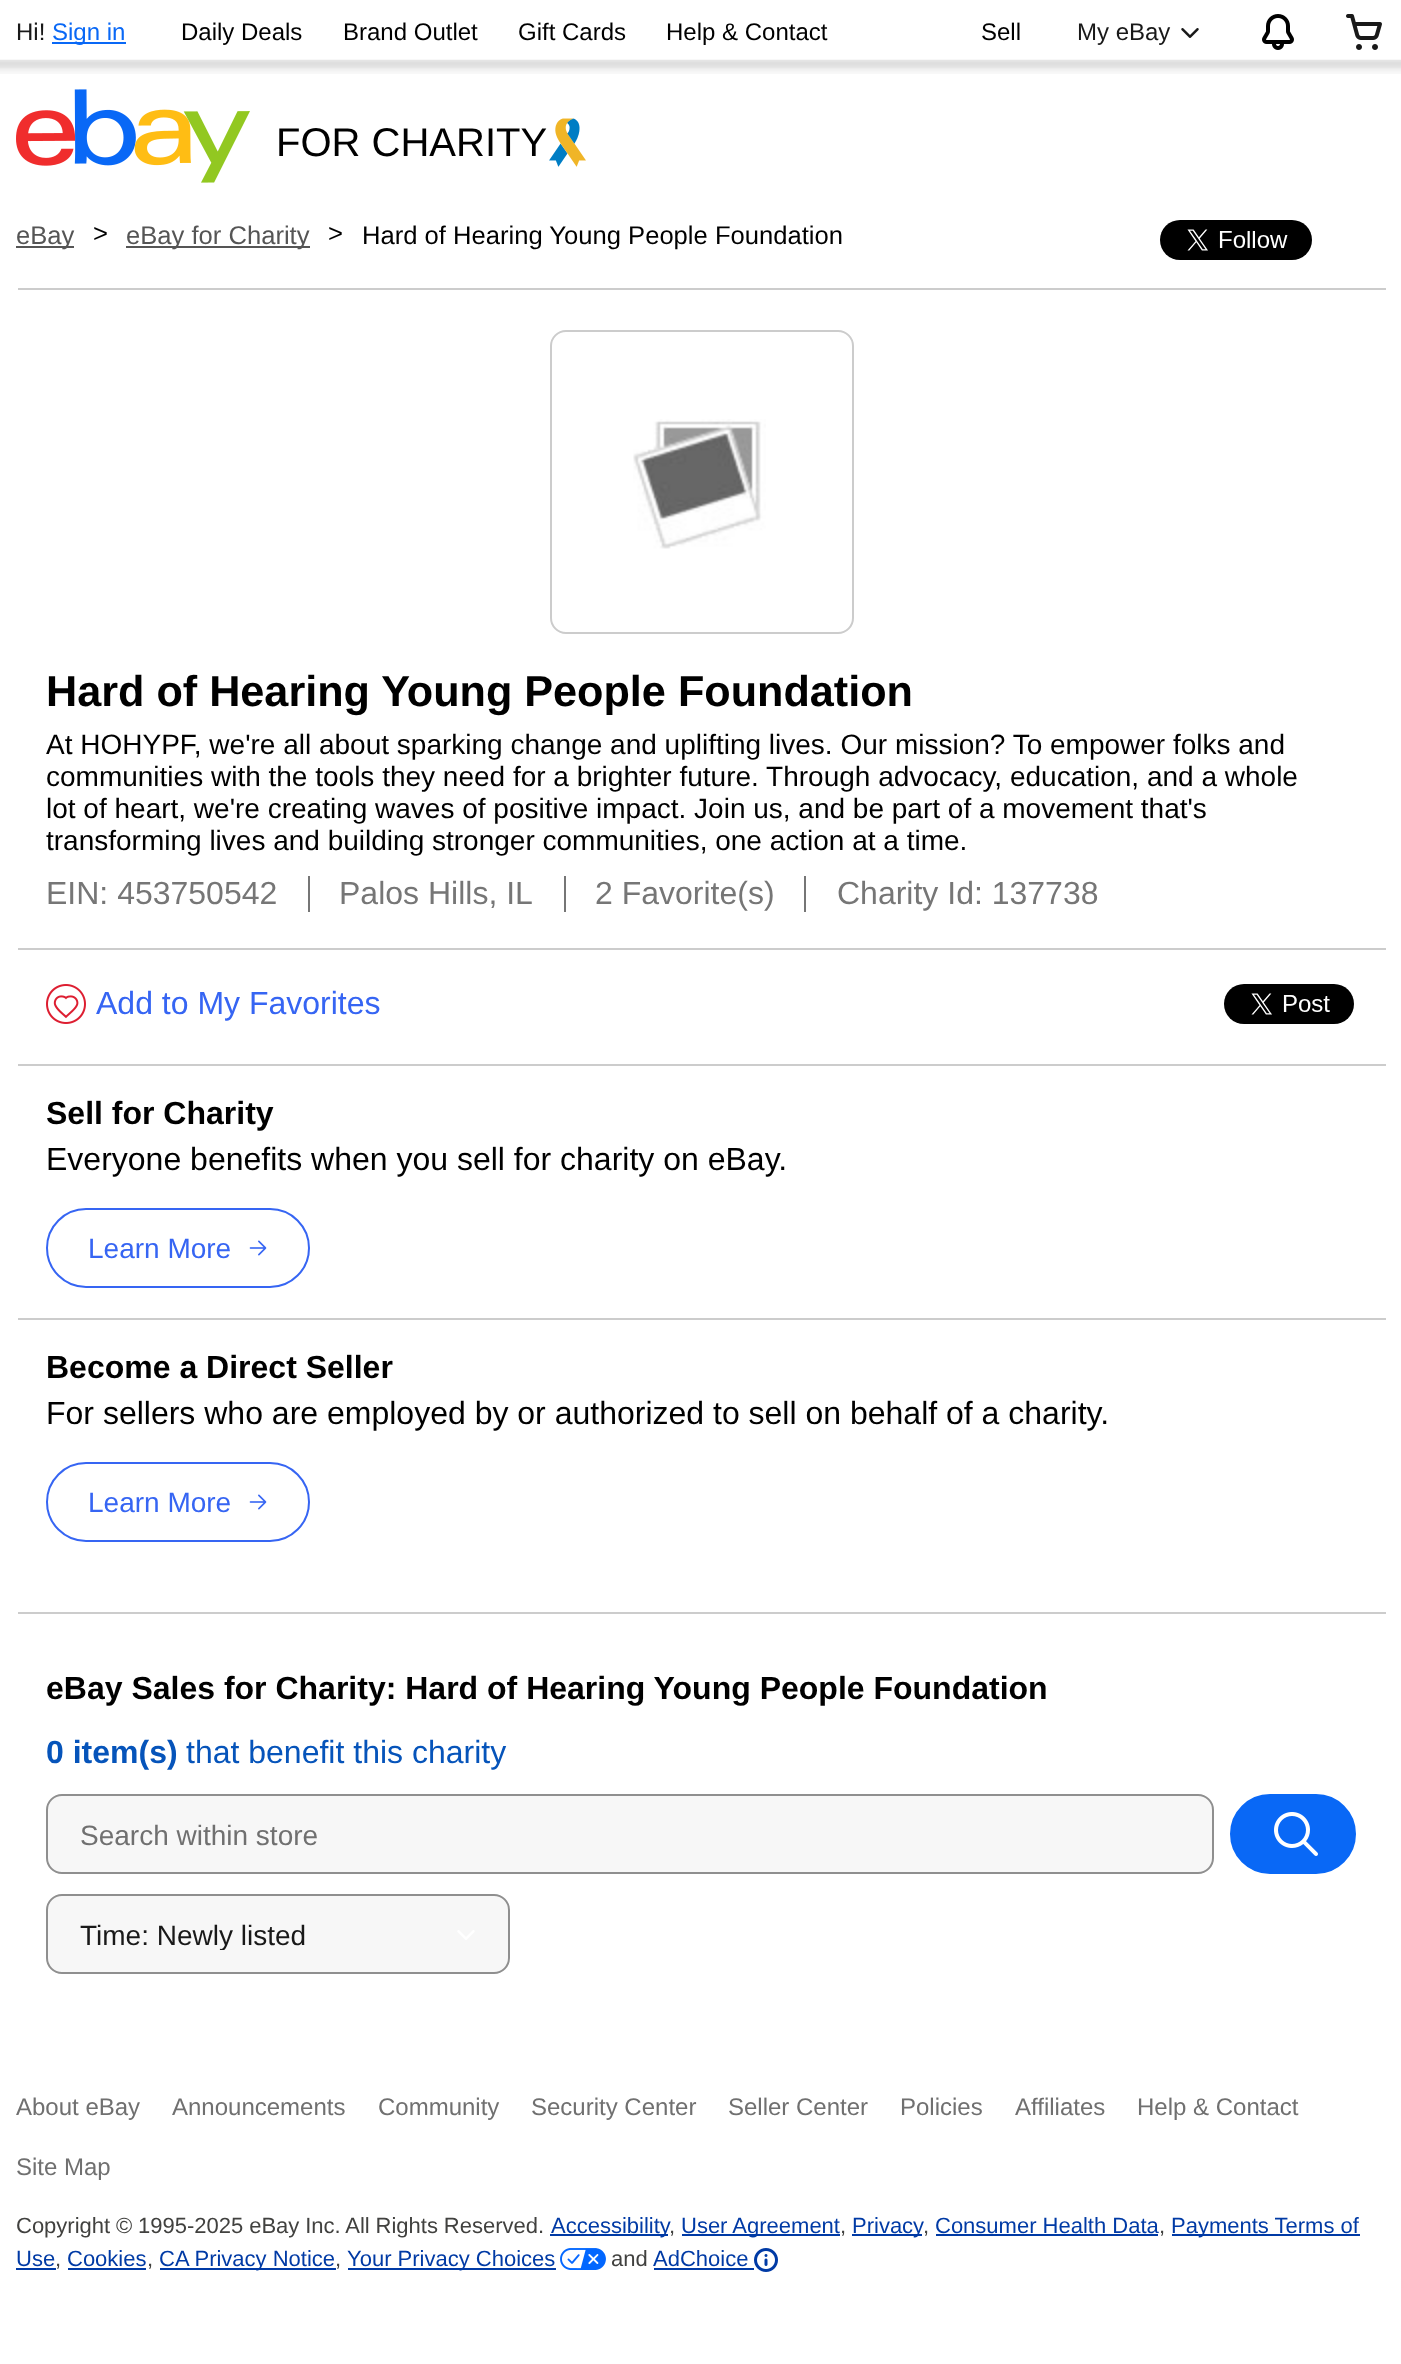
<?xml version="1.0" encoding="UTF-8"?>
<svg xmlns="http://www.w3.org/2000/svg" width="1401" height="2364">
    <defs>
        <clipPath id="clip1"><rect x="80" y="1918" width="364" height="32"/></clipPath>
    </defs>
    <rect width="100%" height="100%" fill="#FFFFFF"/>
    <image x="0" y="59" width="1401" height="15" href="img_01.png"/>
    <text x="16" y="40" font-family="Liberation Sans" font-size="24" fill="#191919">Hi!</text>
    <rect x="52" y="42" width="74" height="2" fill="#0968F6"/>
    <text x="52" y="40" font-family="Liberation Sans" font-size="24" fill="#0968F6">Sign in</text>
    <text x="181" y="40" font-family="Liberation Sans" font-size="24" fill="#000000">Daily Deals</text>
    <text x="343" y="40" font-family="Liberation Sans" font-size="24" fill="#000000">Brand Outlet</text>
    <text x="518" y="40" font-family="Liberation Sans" font-size="24" fill="#000000">Gift Cards</text>
    <text x="666" y="40" font-family="Liberation Sans" font-size="24" fill="#000000">Help &amp; Contact</text>
    <text x="981" y="40" font-family="Liberation Sans" font-size="24" fill="#000000">Sell</text>
    <text x="1077" y="40" font-family="Liberation Sans" font-size="24" fill="#191919">My eBay</text>
    <image x="1181" y="28" width="18" height="10" href="img_02.png"/>
    <image x="1262" y="14" width="32" height="36" href="img_03.png"/>
    <image x="1346" y="14" width="36" height="36" href="img_04.png"/>
    <image x="16" y="89" width="234" height="94" href="img_05.png"/>
    <text x="276" y="156" font-family="Liberation Sans" font-size="40" fill="#000000">FOR CHARITY</text>
    <image x="549" y="118" width="37" height="49" href="img_06.png"/>
    <rect x="16" y="246" width="58" height="2" fill="#555555"/>
    <text x="16" y="244" font-family="Liberation Sans" font-size="25.6" fill="#555555">eBay</text>
    <text x="93" y="242" font-family="Liberation Sans" font-size="25.6" fill="#000000">&gt;</text>
    <rect x="126" y="246" width="184" height="2" fill="#555555"/>
    <text x="126" y="244" font-family="Liberation Sans" font-size="25.6" fill="#555555">eBay for Charity</text>
    <text x="328" y="242" font-family="Liberation Sans" font-size="25.6" fill="#000000">&gt;</text>
    <text x="362" y="244" font-family="Liberation Sans" font-size="25.6" fill="#000000">Hard of Hearing Young People Foundation</text>
    <image x="1160" y="220" width="152" height="40" href="img_07.png"/>
    <rect x="18" y="288" width="1368" height="2" fill="#CCCCCC"/>
    <rect x="18" y="1064" width="1368" height="2" fill="#CCCCCC"/>
    <rect x="551" y="331" width="302" height="302" rx="15" fill="none" stroke="#CCCCCC" stroke-width="2"/>
    <image x="633" y="419" width="133" height="130" href="img_08.png"/>
    <text x="46" y="706" font-family="Liberation Sans" font-size="43.2" font-weight="700" fill="#000000">Hard of Hearing Young People Foundation</text>
    <text font-family="Liberation Sans" font-size="28" fill="#000000">
        <tspan x="46" y="754">At HOHYPF, we're all about sparking change and uplifting lives. Our mission? To empower folks and</tspan>
        <tspan x="46" y="786">communities with the tools they need for a brighter future. Through advocacy, education, and a whole</tspan>
        <tspan x="46" y="818">lot of heart, we're creating waves of positive impact. Join us, and be part of a movement that's</tspan>
        <tspan x="46" y="850">transforming lives and building stronger communities, one action at a time.</tspan>
    </text>
    <rect x="308" y="876" width="2" height="36" fill="#767676"/>
    <text x="46" y="904" font-family="Liberation Sans" font-size="32" fill="#767676">EIN: 453750542</text>
    <rect x="564" y="876" width="2" height="36" fill="#767676"/>
    <text x="339" y="904" font-family="Liberation Sans" font-size="32" fill="#767676">Palos Hills, IL</text>
    <rect x="804" y="876" width="2" height="36" fill="#767676"/>
    <text x="595" y="904" font-family="Liberation Sans" font-size="32" fill="#767676">2 Favorite(s)</text>
    <text x="837" y="904" font-family="Liberation Sans" font-size="32" fill="#767676">Charity Id: 137738</text>
    <rect x="18" y="948" width="1368" height="2" fill="#CCCCCC"/>
    <image x="46" y="984" width="40" height="40" href="img_09.png"/>
    <text x="96" y="1014" font-family="Liberation Sans" font-size="32" fill="#3665F3">Add to My Favorites</text>
    <image x="1224" y="984" width="130" height="40" href="img_10.png"/>
    <rect x="18" y="1318" width="1368" height="2" fill="#CCCCCC"/>
    <text x="46" y="1124" font-family="Liberation Sans" font-size="32" font-weight="700" fill="#000000">Sell for Charity</text>
    <text x="46" y="1170" font-family="Liberation Sans" font-size="32" fill="#000000">Everyone benefits when you sell for charity on eBay.</text>
    <rect x="47" y="1209" width="262" height="78" rx="39" fill="none" stroke="#3665F3" stroke-width="2"/>
    <text x="88" y="1258" font-family="Liberation Sans" font-size="28" fill="#3665F3">Learn More</text>
    <image x="249" y="1240" width="18" height="16" href="img_11.png"/>
    <text x="46" y="1378" font-family="Liberation Sans" font-size="32" font-weight="700" fill="#000000">Become a Direct Seller</text>
    <text x="46" y="1424" font-family="Liberation Sans" font-size="32" fill="#000000">For sellers who are employed by or authorized to sell on behalf of a charity.</text>
    <rect x="47" y="1463" width="262" height="78" rx="39" fill="none" stroke="#3665F3" stroke-width="2"/>
    <text x="88" y="1512" font-family="Liberation Sans" font-size="28" fill="#3665F3">Learn More</text>
    <image x="249" y="1494" width="18" height="16" href="img_11.png"/>
    <rect x="18" y="1612" width="1368" height="2" fill="#CCCCCC"/>
    <text x="46" y="1699" font-family="Liberation Sans" font-size="32" font-weight="700" fill="#000000">eBay Sales for Charity: Hard of Hearing Young People Foundation</text>
    <text x="46" y="1763" font-family="Liberation Sans" font-size="32" font-weight="700" fill="#0654BA">0 item(s)</text>
    <text x="186" y="1763" font-family="Liberation Sans" font-size="32" fill="#0654BA">that benefit this charity</text>
    <rect x="47" y="1795" width="1166" height="78" rx="15" fill="#F7F7F7" stroke="#8F8F8F" stroke-width="2"/>
    <text x="80" y="1845" font-family="Liberation Sans" font-size="28" fill="#707070">Search within store</text>
    <rect x="1231" y="1795" width="124" height="78" rx="39" fill="#0968F6" stroke="#0968F6" stroke-width="2"/>
    <image x="1274" y="1812" width="44" height="44" href="img_12.png"/>
    <rect x="47" y="1895" width="462" height="78" rx="15" fill="#F7F7F7" stroke="#8F8F8F" stroke-width="2"/>
    <g clip-path="url(#clip1)">
        <text x="80" y="1945" font-family="Liberation Sans" font-size="28" fill="#191919">Time: Newly listed</text>
    </g>
    <image x="457" y="1930" width="18" height="10" href="img_13.png"/>
    <rect x="0" y="60" width="1401" height="1" fill="#E5E5E5"/>
    <text x="16" y="2115" font-family="Liberation Sans" font-size="24" fill="#707070">About eBay</text>
    <text x="172" y="2115" font-family="Liberation Sans" font-size="24" fill="#707070">Announcements</text>
    <text x="378" y="2115" font-family="Liberation Sans" font-size="24" fill="#707070">Community</text>
    <text x="531" y="2115" font-family="Liberation Sans" font-size="24" fill="#707070">Security Center</text>
    <text x="728" y="2115" font-family="Liberation Sans" font-size="24" fill="#707070">Seller Center</text>
    <text x="900" y="2115" font-family="Liberation Sans" font-size="24" fill="#707070">Policies</text>
    <text x="1015" y="2115" font-family="Liberation Sans" font-size="24" fill="#707070">Affiliates</text>
    <text x="1137" y="2115" font-family="Liberation Sans" font-size="24" fill="#707070">Help &amp; Contact</text>
    <text x="16" y="2175" font-family="Liberation Sans" font-size="24" fill="#707070">Site Map</text>
    <text x="16" y="2233" word-spacing="-0.25" font-family="Liberation Sans" font-size="22" fill="#41413F">Copyright © 1995-2025 eBay Inc. All Rights Reserved.</text>
    <rect x="550" y="2234" width="118" height="2" fill="#003AA5"/>
    <text x="551" y="2233" font-family="Liberation Sans" font-size="22" fill="#003AA5">Accessibility</text>
    <text x="669" y="2233" font-family="Liberation Sans" font-size="22" fill="#41413F">,</text>
    <rect x="682" y="2234" width="158" height="2" fill="#003AA5"/>
    <text x="681" y="2233" font-family="Liberation Sans" font-size="22" fill="#003AA5">User Agreement</text>
    <text x="840" y="2233" font-family="Liberation Sans" font-size="22" fill="#41413F">,</text>
    <rect x="852" y="2234" width="70" height="2" fill="#003AA5"/>
    <text x="852" y="2233" font-family="Liberation Sans" font-size="22" fill="#003AA5">Privacy</text>
    <text x="923" y="2233" font-family="Liberation Sans" font-size="22" fill="#41413F">,</text>
    <text x="935" y="2233" font-family="Liberation Sans" font-size="22" fill="#003AA5">Consumer Health Data</text>
    <rect x="936" y="2234" width="222" height="2" fill="#003AA5"/>
    <text x="1159" y="2233" font-family="Liberation Sans" font-size="22" fill="#41413F">,</text>
    <rect x="1172" y="2234" width="188" height="2" fill="#003AA5"/>
    <text x="1171" y="2233" font-family="Liberation Sans" font-size="22" fill="#003AA5">Payments Terms of</text>
    <text x="16" y="2266" font-family="Liberation Sans" font-size="22" fill="#003AA5">Use</text>
    <rect x="16" y="2268" width="40" height="2" fill="#003AA5"/>
    <text x="55" y="2266" font-family="Liberation Sans" font-size="22" fill="#41413F">,</text>
    <text x="67" y="2266" font-family="Liberation Sans" font-size="22" fill="#003AA5">Cookies</text>
    <rect x="68" y="2268" width="78" height="2" fill="#003AA5"/>
    <text x="147" y="2266" font-family="Liberation Sans" font-size="22" fill="#41413F">,</text>
    <rect x="160" y="2268" width="176" height="2" fill="#003AA5"/>
    <text x="159" y="2266" font-family="Liberation Sans" font-size="22" fill="#003AA5">CA Privacy Notice</text>
    <text x="335" y="2266" font-family="Liberation Sans" font-size="22" fill="#41413F">,</text>
    <rect x="348" y="2268" width="208" height="2" fill="#003AA5"/>
    <text x="347" y="2266" font-family="Liberation Sans" font-size="22" fill="#003AA5">Your Privacy Choices</text>
    <image x="560" y="2248" width="46" height="22" href="img_14.png"/>
    <text x="611" y="2266" font-family="Liberation Sans" font-size="22" fill="#41413F">and</text>
    <text x="653" y="2266" font-family="Liberation Sans" font-size="22" fill="#003AA5">AdChoice</text>
    <rect x="654" y="2268" width="100" height="2" fill="#003AA5"/>
    <image x="754" y="2248" width="24" height="24" href="img_15.png"/>
</svg>
